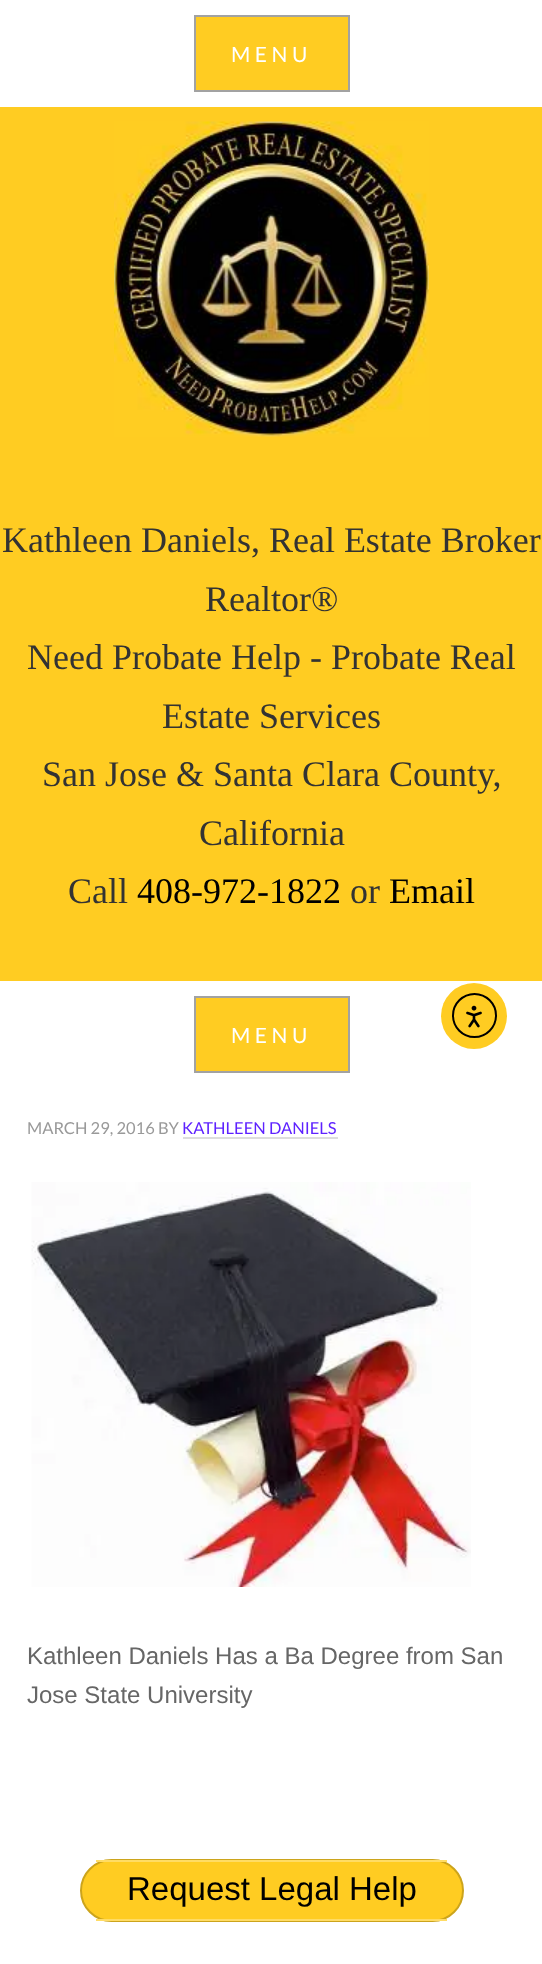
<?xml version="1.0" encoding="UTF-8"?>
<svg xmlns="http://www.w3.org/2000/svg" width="542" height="1964">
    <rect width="100%" height="100%" fill="#FFFFFF"/>
    <rect x="195" y="16" width="154" height="75" fill="#FFCC22" stroke="#A2A2A2" stroke-width="2"/>
    <text x="231" y="62" font-family="Lato" font-size="21" letter-spacing="4.5" fill="#FFFFFF">MENU</text>
    <rect x="0" y="107" width="542" height="874" fill="#FFCC22"/>
    <image x="114" y="121" width="315" height="316" href="img_01.png"/>
    <text x="2" y="552" font-family="Liberation Serif" font-size="36" fill="#333333">Kathleen Daniels, Real Estate Broker</text>
    <text x="205" y="611" font-family="Liberation Serif" font-size="36" fill="#333333">Realtor®</text>
    <text x="27" y="669" font-family="Liberation Serif" font-size="36" fill="#333333">Need Probate Help - Probate Real</text>
    <text x="162" y="728" font-family="Liberation Serif" font-size="36" fill="#333333">Estate Services</text>
    <text x="42" y="786" font-family="Liberation Serif" font-size="36" fill="#333333">San Jose &amp; Santa Clara County,</text>
    <text x="199" y="845" font-family="Liberation Serif" font-size="36" fill="#333333">California</text>
    <text x="68" y="903" font-family="Liberation Serif" font-size="36" fill="#333333">Call</text>
    <text x="137" y="903" font-family="Liberation Serif" font-size="36" fill="#000000">408-972-1822</text>
    <text x="350" y="903" font-family="Liberation Serif" font-size="36" fill="#333333">or</text>
    <text x="389" y="903" font-family="Liberation Serif" font-size="36" fill="#000000">Email</text>
    <rect x="195" y="997" width="154" height="75" fill="#FFCC22" stroke="#A2A2A2" stroke-width="2"/>
    <text x="231" y="1043" font-family="Lato" font-size="21" letter-spacing="4.5" fill="#FFFFFF">MENU</text>
    <text x="27" y="1134" font-family="Lato" font-size="16.5" fill="#999999">MARCH 29, 2016 BY</text>
    <text x="182" y="1134" font-family="Lato" font-size="16.5" fill="#5E22FF">KATHLEEN DANIELS</text>
    <rect x="183" y="1137" width="155" height="2" fill="#DDDDDD"/>
    <image x="31" y="1182" width="440" height="405" href="img_02.png"/>
    <text font-family="Liberation Sans" font-size="24" fill="#666666">
        <tspan x="27" y="1664">Kathleen Daniels Has a Ba Degree from San</tspan>
        <tspan x="27" y="1703">Jose State University</tspan>
    </text>
    <rect x="81" y="1860" width="382" height="61" rx="30.5" fill="#FFCC22" stroke="#CCA41C" stroke-width="2"/>
    <rect x="96" y="1860" width="351" height="2" fill="#FFDC65"/>
    <rect x="96" y="1919" width="351" height="2" fill="#FFDC65"/>
    <text x="127" y="1900" font-family="Liberation Sans" font-size="33" fill="#000000">Request Legal Help</text>
    <circle cx="474" cy="1016" r="33" fill="#FFCC22"/>
    <circle cx="474.5" cy="1015.5" r="21.5" fill="none" stroke="#000000" stroke-width="2"/>
    <image x="466" y="1005" width="16" height="23" href="img_03.png"/>
</svg>
